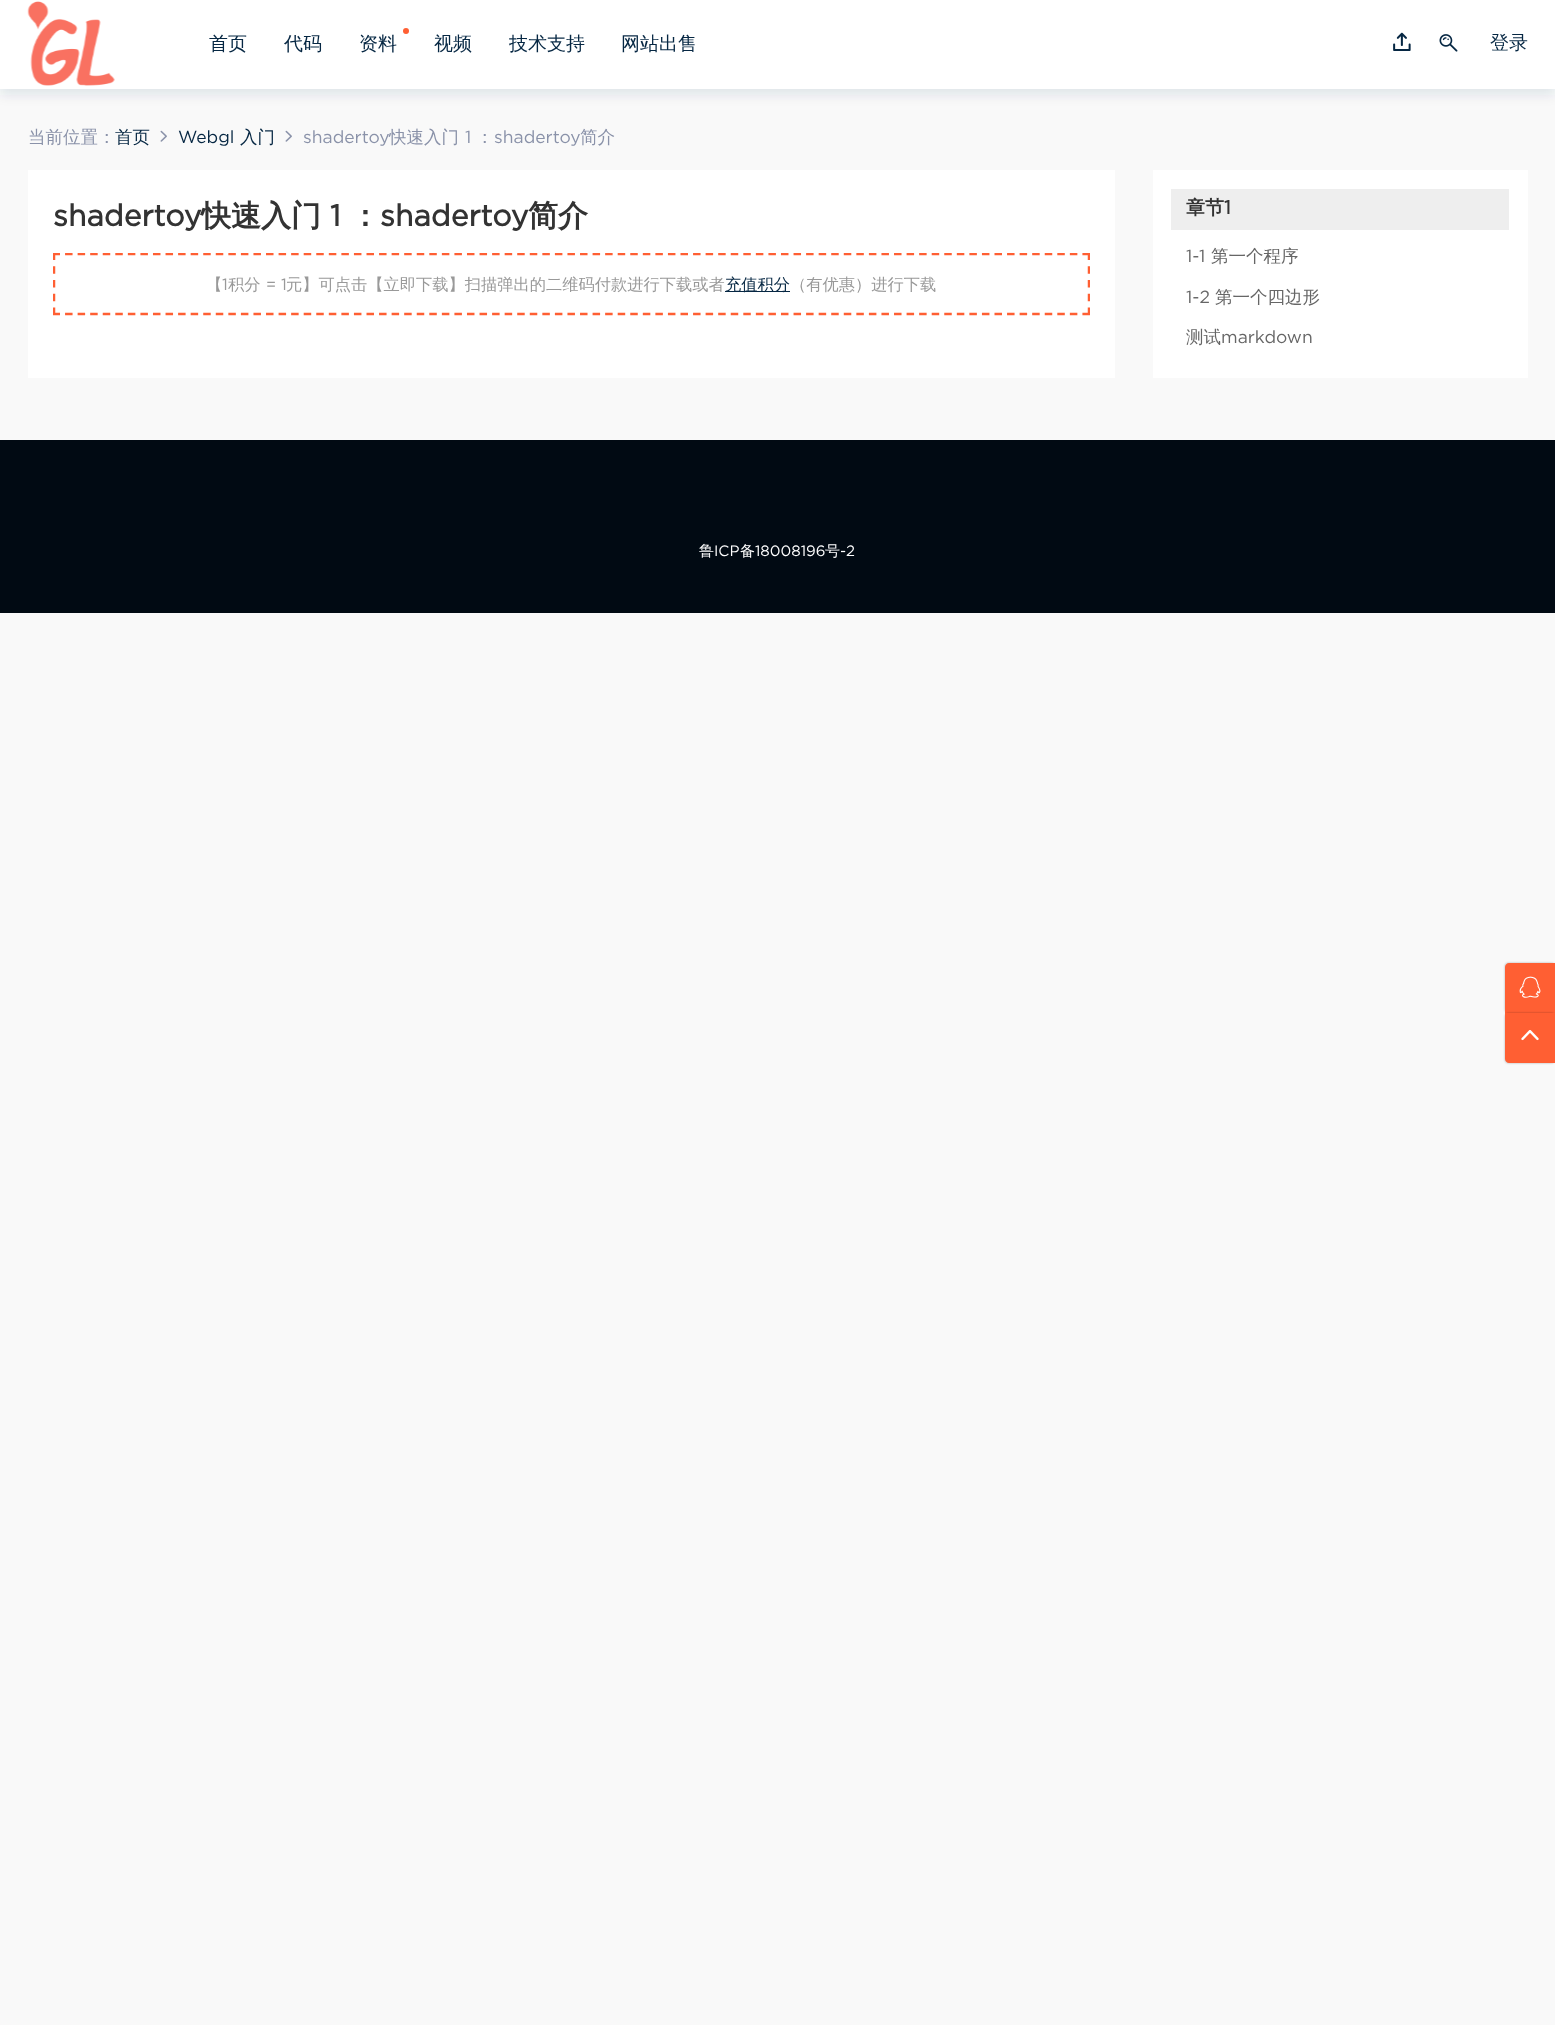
<?xml version="1.0" encoding="UTF-8"?>
<svg xmlns="http://www.w3.org/2000/svg" width="1555" height="2025">
    <defs>
        <filter id="blur1" x="-50%" y="-200%" width="200%" height="500%"><feGaussianBlur stdDeviation="6"/></filter>
        <clipPath id="clip1"><rect x="53" y="253" width="1037" height="87"/></clipPath>
        <filter id="blur2" x="-50%" y="-200%" width="200%" height="500%"><feGaussianBlur stdDeviation="1"/></filter>
    </defs>
    <rect width="100%" height="100%" fill="#F9F9F9"/>
    <rect x="0" y="6" width="1555" height="89" fill="#113A5D" fill-opacity="0.1" filter="url(#blur1)"/>
    <rect x="0" y="0" width="1555" height="89" fill="#FFFFFF"/>
    <image x="27" y="1" width="88" height="85" href="img_01.png"/>
    <text x="209" y="50" font-family="WenQuanYi Zen Hei" font-size="19" font-weight="500" fill="#062743">首页</text>
    <text x="284" y="50" font-family="WenQuanYi Zen Hei" font-size="19" font-weight="500" fill="#062743">代码</text>
    <circle cx="406" cy="31" r="3" fill="#FF5F33"/>
    <text x="359" y="50" font-family="WenQuanYi Zen Hei" font-size="19" font-weight="500" fill="#062743">资料</text>
    <text x="434" y="50" font-family="WenQuanYi Zen Hei" font-size="19" font-weight="500" fill="#062743">视频</text>
    <text x="509" y="50" font-family="WenQuanYi Zen Hei" font-size="19" font-weight="500" fill="#062743">技术支持</text>
    <text x="621" y="50" font-family="WenQuanYi Zen Hei" font-size="19" font-weight="500" fill="#062743">网站出售</text>
    <image x="1393" y="32" width="18" height="19" href="img_02.png"/>
    <image x="1439" y="34" width="19" height="18" href="img_03.png"/>
    <text x="1490" y="49" font-family="WenQuanYi Zen Hei" font-size="19" font-weight="500" fill="#062743">登录</text>
    <text x="28" y="143" font-family="WenQuanYi Zen Hei" font-size="17.5" font-weight="500" fill="#8A92A9">当前位置：</text>
    <text x="115" y="143" font-family="WenQuanYi Zen Hei" font-size="17.5" font-weight="500" fill="#062743">首页</text>
    <image x="160" y="130" width="7" height="12" href="img_04.png"/>
    <text x="178" y="143" font-family="Gotham" font-size="17.5" fill="#062743">Webgl</text>
    <text x="240" y="143" font-family="WenQuanYi Zen Hei" font-size="17.5" font-weight="500" fill="#062743">入门</text>
    <image x="285" y="130" width="7" height="12" href="img_04.png"/>
    <text x="303" y="143" font-family="Gotham" font-size="17.5" fill="#8A92A9">shadertoy</text>
    <text x="389" y="143" font-family="WenQuanYi Zen Hei" font-size="17.5" font-weight="500" fill="#8A92A9">快速入门</text>
    <text x="465" y="143" font-family="Gotham" font-size="17.5" fill="#8A92A9">1</text>
    <text x="476" y="143" font-family="WenQuanYi Zen Hei" font-size="17.5" font-weight="500" fill="#8A92A9">：</text>
    <text x="494" y="143" font-family="Gotham" font-size="17.5" fill="#8A92A9">shadertoy</text>
    <text x="580" y="143" font-family="WenQuanYi Zen Hei" font-size="17.5" font-weight="500" fill="#8A92A9">简介</text>
    <rect x="28" y="170" width="1087" height="208" fill="#FFFFFF"/>
    <text x="53" y="226" font-family="Gotham" font-size="30" font-weight="700" fill="#333333">shadertoy</text>
    <text x="201" y="226" font-family="WenQuanYi Zen Hei" font-size="30" font-weight="700" fill="#333333">快速入门</text>
    <text x="330" y="226" font-family="Gotham" font-size="30" font-weight="700" fill="#333333">1</text>
    <text x="350" y="226" font-family="WenQuanYi Zen Hei" font-size="30" font-weight="700" fill="#333333">：</text>
    <text x="380" y="226" font-family="Gotham" font-size="30" font-weight="700" fill="#333333">shadertoy</text>
    <text x="528" y="226" font-family="WenQuanYi Zen Hei" font-size="30" font-weight="700" fill="#333333">简介</text>
    <g clip-path="url(#clip1)">
        <path d="M 52.5 254 H 1090" fill="none" stroke="#FF5F33" stroke-width="2.5" stroke-dasharray="7.5 5.06"/>
        <path d="M 1089 252.5 V 315" fill="none" stroke="#FF5F33" stroke-width="2.5" stroke-dasharray="7.5 6.25"/>
        <path d="M 52.5 314 H 1090" fill="none" stroke="#FF5F33" stroke-width="2.5" stroke-dasharray="7.5 5.06"/>
        <path d="M 54 252.5 V 315" fill="none" stroke="#FF5F33" stroke-width="2.5" stroke-dasharray="7.5 6.25"/>
    </g>
    <text x="206" y="290" font-family="WenQuanYi Zen Hei" font-size="16.25" font-weight="500" fill="#999999">【</text>
    <text x="222" y="290" font-family="Gotham" font-size="16.25" fill="#999999">1</text>
    <text x="228" y="290" font-family="WenQuanYi Zen Hei" font-size="16.25" font-weight="500" fill="#999999">积分</text>
    <text x="266" y="290" font-family="Gotham" font-size="16.25" fill="#999999">= 1</text>
    <text x="286" y="290" font-family="WenQuanYi Zen Hei" font-size="16.25" font-weight="500" fill="#999999">元】可点击【立即下载】扫描弹出的二维码付款进行下载或者</text>
    <rect x="725" y="291" width="65" height="1" fill="#062743"/>
    <text x="725" y="290" font-family="WenQuanYi Zen Hei" font-size="16.25" font-weight="500" fill="#062743">充值积分</text>
    <text x="790" y="290" font-family="WenQuanYi Zen Hei" font-size="16.25" font-weight="500" fill="#999999">（有优惠）进行下载</text>
    <rect x="1153" y="170" width="375" height="208" fill="#FFFFFF"/>
    <rect x="1171" y="189" width="338" height="41" fill="#EEEEEE"/>
    <text x="1186" y="214" font-family="WenQuanYi Zen Hei" font-size="19" font-weight="700" fill="#333333">章节</text>
    <text x="1224" y="214" font-family="Gotham" font-size="19" font-weight="700" fill="#333333">1</text>
    <text x="1186" y="262" font-family="Gotham" font-size="17.5" fill="#666666">1-1</text>
    <text x="1211" y="262" font-family="WenQuanYi Zen Hei" font-size="17.5" font-weight="500" fill="#666666">第一个程序</text>
    <text x="1186" y="303" font-family="Gotham" font-size="17.5" fill="#666666">1-2</text>
    <text x="1215" y="303" font-family="WenQuanYi Zen Hei" font-size="17.5" font-weight="500" fill="#666666">第一个四边形</text>
    <text x="1186" y="343" font-family="WenQuanYi Zen Hei" font-size="17.5" font-weight="500" fill="#666666">测试</text>
    <text x="1221" y="343" font-family="Gotham" font-size="17.5" fill="#666666">markdown</text>
    <rect x="0" y="440" width="1555" height="173" fill="#010A13"/>
    <text x="699" y="556" font-family="WenQuanYi Zen Hei" font-size="15" font-weight="500" fill="#FFFFFF">鲁</text>
    <text x="714" y="556" font-family="Gotham" font-size="15" fill="#FFFFFF">ICP</text>
    <text x="740" y="556" font-family="WenQuanYi Zen Hei" font-size="15" font-weight="500" fill="#FFFFFF">备</text>
    <text x="755" y="556" font-family="Gotham" font-size="15" fill="#FFFFFF">18008196</text>
    <text x="825" y="556" font-family="WenQuanYi Zen Hei" font-size="15" font-weight="500" fill="#FFFFFF">号</text>
    <text x="840" y="556" font-family="Gotham" font-size="15" fill="#FFFFFF">-2</text>
    <rect x="1505" y="963" width="50" height="50" rx="4" fill="#000000" fill-opacity="0.3" filter="url(#blur2)"/>
    <path d="M 1509 963 H 1555 V 1013 H 1505 V 967 C 1505 965 1507 963 1509 963 Z" fill="#FF5F33"/>
    <image x="1519" y="976" width="22" height="22" href="img_05.png"/>
    <rect x="1505" y="1013" width="50" height="50" rx="4" fill="#000000" fill-opacity="0.3" filter="url(#blur2)"/>
    <path d="M 1505 1013 H 1555 V 1063 H 1509 C 1507 1063 1505 1061 1505 1059 Z" fill="#FF5F33"/>
    <image x="1521" y="1030" width="18" height="11" href="img_06.png"/>
</svg>
